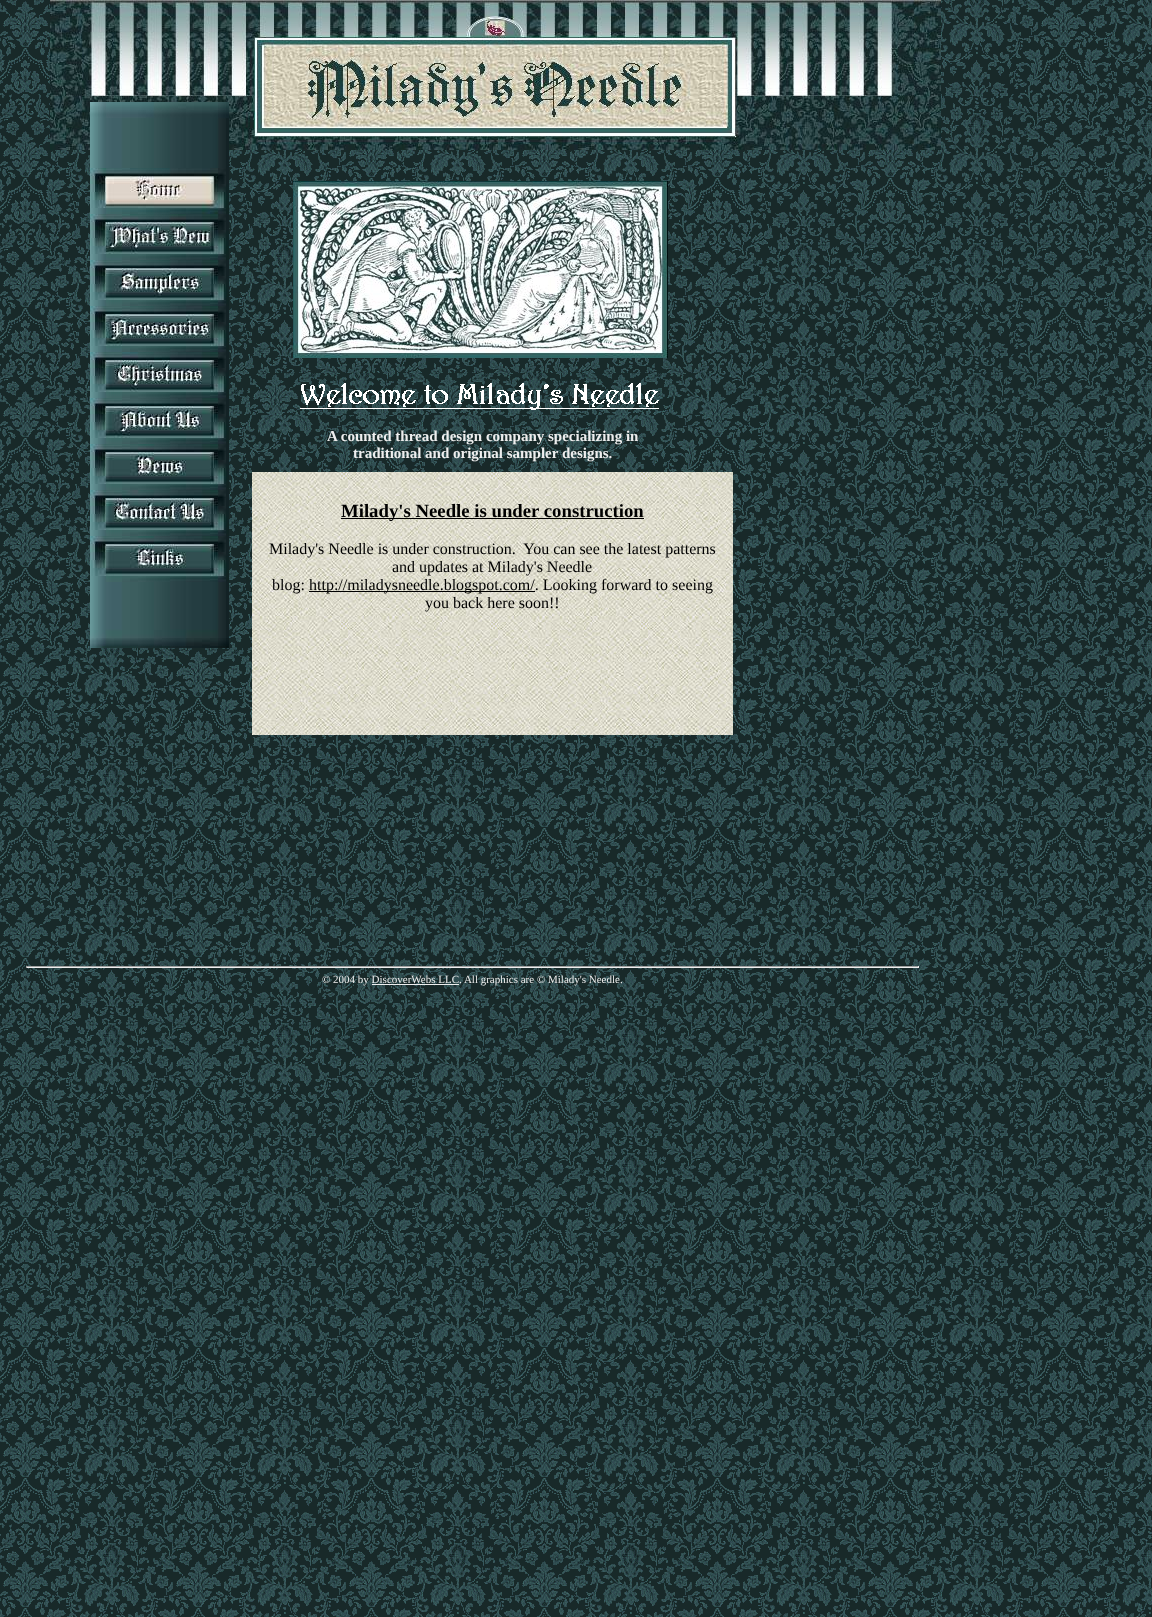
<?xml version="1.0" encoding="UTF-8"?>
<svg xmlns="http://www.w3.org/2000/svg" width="1152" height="1617">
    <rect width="100%" height="100%" fill="#FFFFFF"/>
    <image x="0" y="0" width="1152" height="1617" href="img_01.png"/>
    <image x="50" y="0" width="891" height="150" href="img_02.png"/>
    <image x="90" y="102" width="139" height="66" href="img_03.png"/>
    <image x="90" y="168" width="139" height="46" href="img_04.png"/>
    <image x="90" y="214" width="139" height="46" href="img_05.png"/>
    <image x="90" y="260" width="139" height="46" href="img_06.png"/>
    <image x="90" y="306" width="139" height="46" href="img_07.png"/>
    <image x="90" y="352" width="139" height="46" href="img_08.png"/>
    <image x="90" y="398" width="139" height="46" href="img_09.png"/>
    <image x="90" y="444" width="139" height="46" href="img_10.png"/>
    <image x="90" y="490" width="139" height="46" href="img_11.png"/>
    <image x="90" y="536" width="139" height="46" href="img_12.png"/>
    <image x="90" y="582" width="139" height="66" href="img_13.png"/>
    <image x="293" y="181" width="375" height="177" href="img_14.png"/>
    <image x="250" y="373" width="461" height="42" href="img_15.png"/>
    <text x="327" y="441" font-family="Liberation Serif" font-size="15" font-weight="700" fill="#EEEEEE">A counted thread design company specializing in</text>
    <text x="353" y="458" font-family="Liberation Serif" font-size="15" font-weight="700" fill="#EEEEEE">traditional and original sampler designs.</text>
    <image x="252" y="472" width="481" height="263" href="img_16.png"/>
    <rect x="341" y="518" width="303" height="1" fill="#000000"/>
    <text x="341" y="517" font-family="Liberation Serif" font-size="18.75" font-weight="700" fill="#000000">Milady's Needle is under construction</text>
    <text x="269" y="554" font-family="Liberation Serif" font-size="16" fill="#000000" xml:space="preserve">Milady's Needle is under construction.  You can see the latest patterns</text>
    <text x="392" y="572" font-family="Liberation Serif" font-size="16" fill="#000000">and updates at Milady's Needle</text>
    <text x="272" y="590" font-family="Liberation Serif" font-size="16" fill="#000000">blog:</text>
    <rect x="309" y="591" width="226" height="1" fill="#000000"/>
    <text x="309" y="590" font-family="Liberation Serif" font-size="16" fill="#000000">http://miladysneedle.blogspot.com/. Looking forward to seeing</text>
    <text x="425" y="608" font-family="Liberation Serif" font-size="16" fill="#000000">you back here soon!!</text>
    <rect x="26" y="966" width="893" height="1" fill="#9F9F9F"/>
    <rect x="918" y="966" width="1" height="2" fill="#EEEEEE"/>
    <rect x="26" y="967" width="893" height="1" fill="#EEEEEE"/>
    <rect x="26" y="966" width="1" height="2" fill="#9F9F9F"/>
    <text x="322" y="983" font-family="Liberation Serif" font-size="11" fill="#EEEEEE">© 2004 by DiscoverWebs LLC. All graphics are © Milady's Needle.</text>
    <rect x="372" y="984" width="87" height="1" fill="#EEEEEE"/>
</svg>
